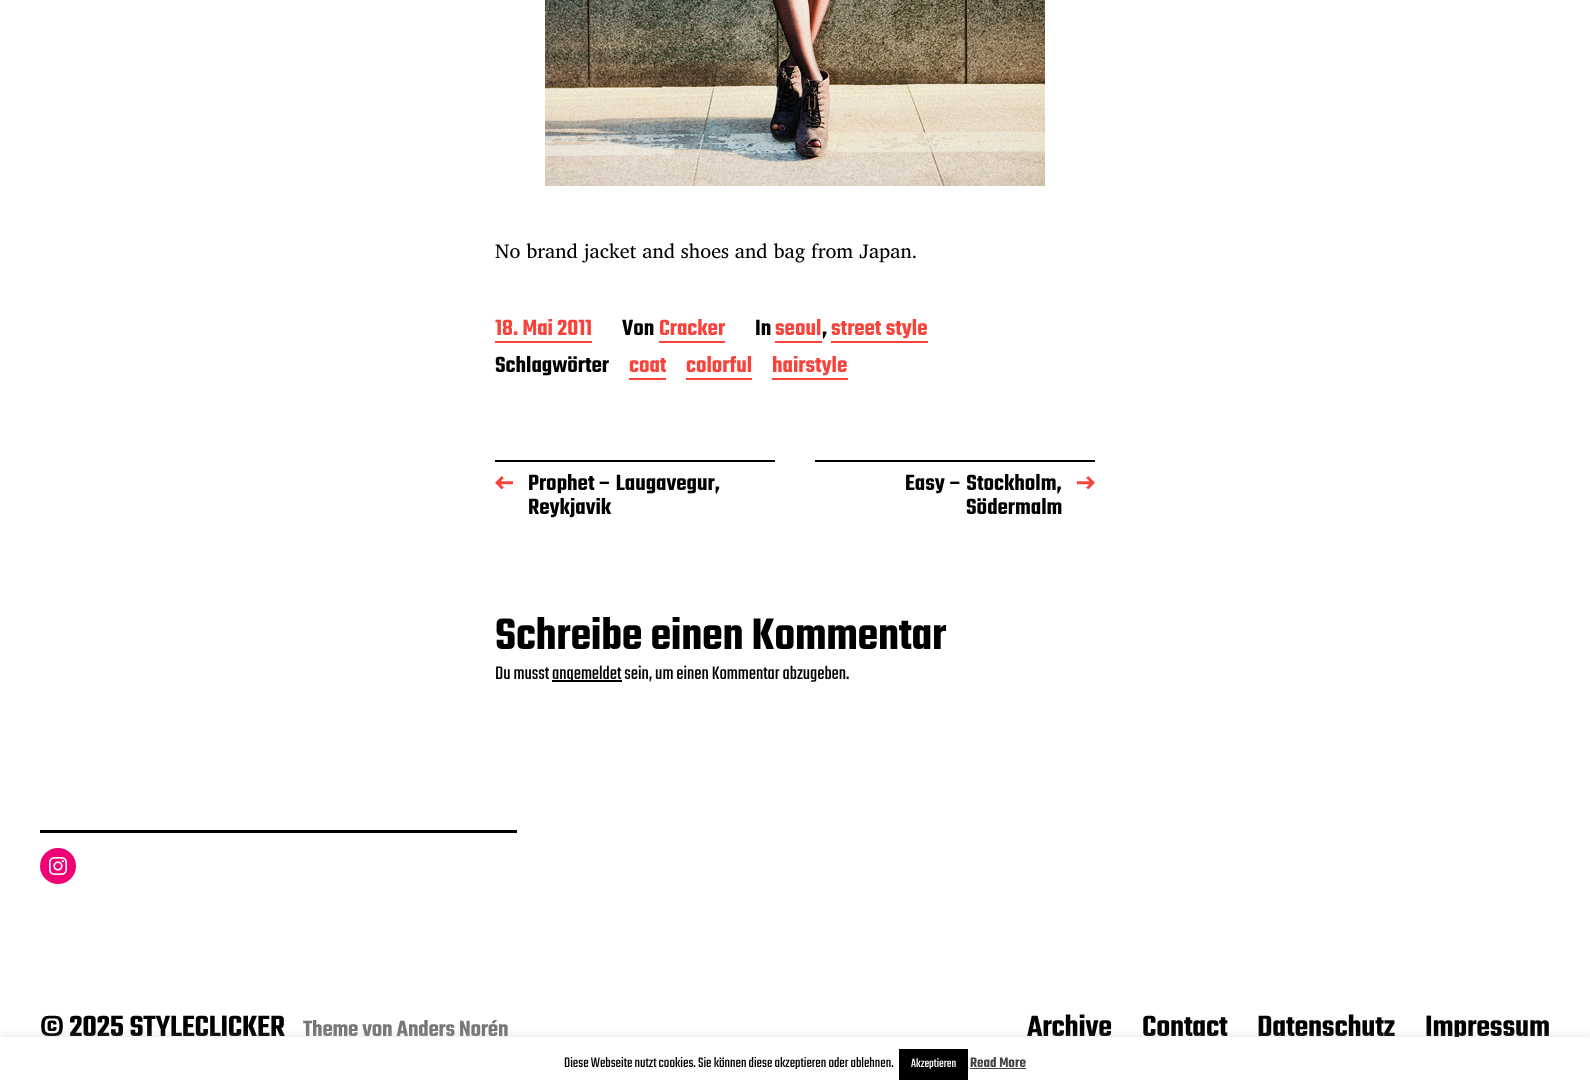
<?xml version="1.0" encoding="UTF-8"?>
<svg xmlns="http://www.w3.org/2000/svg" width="1590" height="1092">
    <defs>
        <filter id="blur1" x="-50%" y="-200%" width="200%" height="500%"><feGaussianBlur stdDeviation="5"/></filter>
    </defs>
    <rect width="100%" height="100%" fill="#FFFFFF"/>
    <image x="545" y="0" width="500" height="186" href="img_01.png"/>
    <text x="495" y="258" font-family="Charis SIL" font-size="20" fill="#000000">No brand jacket and shoes and bag from Japan.</text>
    <rect x="495" y="341" width="97" height="2" fill="#F9423A"/>
    <text x="495" y="335" font-family="Teko" font-size="24" font-weight="600" fill="#F9423A">18. Mai 2011</text>
    <text x="622" y="335" font-family="Teko" font-size="24" font-weight="600" fill="#000000">Von</text>
    <rect x="659" y="341" width="66" height="2" fill="#F9423A"/>
    <text x="659" y="335" font-family="Teko" font-size="24" font-weight="600" fill="#F9423A">Cracker</text>
    <text x="755" y="335" font-family="Teko" font-size="24" font-weight="600" fill="#000000">In</text>
    <rect x="775" y="341" width="47" height="2" fill="#F9423A"/>
    <text x="775" y="335" font-family="Teko" font-size="24" font-weight="600" fill="#F9423A">seoul</text>
    <text x="822" y="335" font-family="Teko" font-size="24" font-weight="600" fill="#000000">,</text>
    <rect x="831" y="341" width="97" height="2" fill="#F9423A"/>
    <text x="831" y="335" font-family="Teko" font-size="24" font-weight="600" fill="#F9423A">street style</text>
    <text x="495" y="372" font-family="Teko" font-size="24" font-weight="600" fill="#000000">Schlagwörter</text>
    <rect x="629" y="378" width="37" height="2" fill="#F9423A"/>
    <text x="629" y="372" font-family="Teko" font-size="24" font-weight="600" fill="#F9423A">coat</text>
    <rect x="686" y="378" width="66" height="2" fill="#F9423A"/>
    <text x="686" y="372" font-family="Teko" font-size="24" font-weight="600" fill="#F9423A">colorful</text>
    <rect x="772" y="378" width="76" height="2" fill="#F9423A"/>
    <text x="772" y="372" font-family="Teko" font-size="24" font-weight="600" fill="#F9423A">hairstyle</text>
    <rect x="495" y="460" width="280" height="2" fill="#000000"/>
    <image x="495" y="476" width="18" height="13" href="img_02.png"/>
    <text font-family="Teko" font-size="24" font-weight="600" fill="#000000">
        <tspan x="528" y="490">Prophet – Laugavegur,</tspan>
        <tspan x="528" y="514">Reykjavik</tspan>
    </text>
    <rect x="815" y="460" width="280" height="2" fill="#000000"/>
    <text x="905" y="490" font-family="Teko" font-size="24" font-weight="600" fill="#000000">Easy – Stockholm,</text>
    <text x="966" y="514" font-family="Teko" font-size="24" font-weight="600" fill="#000000">Södermalm</text>
    <image x="1077" y="476" width="18" height="13" href="img_03.png"/>
    <text x="495" y="649" font-family="Teko" font-size="48" font-weight="600" letter-spacing="-0.25" fill="#000000">Schreibe einen Kommentar</text>
    <text x="495" y="679" font-family="Teko" font-size="20" fill="#000000">Du musst</text>
    <rect x="552" y="680" width="70" height="2" fill="#000000"/>
    <text x="552" y="679" font-family="Teko" font-size="20" fill="#000000">angemeldet sein, um einen Kommentar abzugeben.</text>
    <rect x="40" y="830" width="477" height="3" fill="#000000"/>
    <circle cx="58" cy="866" r="18" fill="#F00075"/>
    <image x="49" y="857" width="18" height="18" href="img_04.png"/>
    <text x="40" y="1036" font-family="Teko" font-size="32" font-weight="600" letter-spacing="-0.2" fill="#000000">© 2025 STYLECLICKER</text>
    <text x="303" y="1036" font-family="Teko" font-size="24" font-weight="600" letter-spacing="-0.2" fill="#767676">Theme von Anders Norén</text>
    <text x="1027" y="1036" font-family="Teko" font-size="32" font-weight="600" letter-spacing="-0.2" fill="#000000">Archive</text>
    <text x="1142" y="1036" font-family="Teko" font-size="32" font-weight="600" letter-spacing="-0.2" fill="#000000">Contact</text>
    <text x="1257" y="1036" font-family="Teko" font-size="32" font-weight="600" letter-spacing="-0.2" fill="#000000">Datenschutz</text>
    <text x="1425" y="1036" font-family="Teko" font-size="32" font-weight="600" letter-spacing="-0.2" fill="#000000">Impressum</text>
    <rect x="0" y="1036" width="1590" height="55" fill="#ACABAB" fill-opacity="0.3" filter="url(#blur1)"/>
    <rect x="0" y="1037" width="1590" height="55" fill="#FFFFFF"/>
    <text x="564" y="1067" font-family="Teko" font-size="15" fill="#000000">Diese Webseite nutzt cookies. Sie können diese akzeptieren oder ablehnen.</text>
    <rect x="899" y="1049" width="69" height="31" fill="#000000"/>
    <text x="911" y="1067" font-family="Teko" font-size="13" fill="#FFFFFF">Akzeptieren</text>
    <text x="970" y="1067" font-family="Teko" font-size="15" font-weight="600" fill="#444444">Read More</text>
    <rect x="970" y="1068" width="56" height="1" fill="#444444"/>
</svg>
